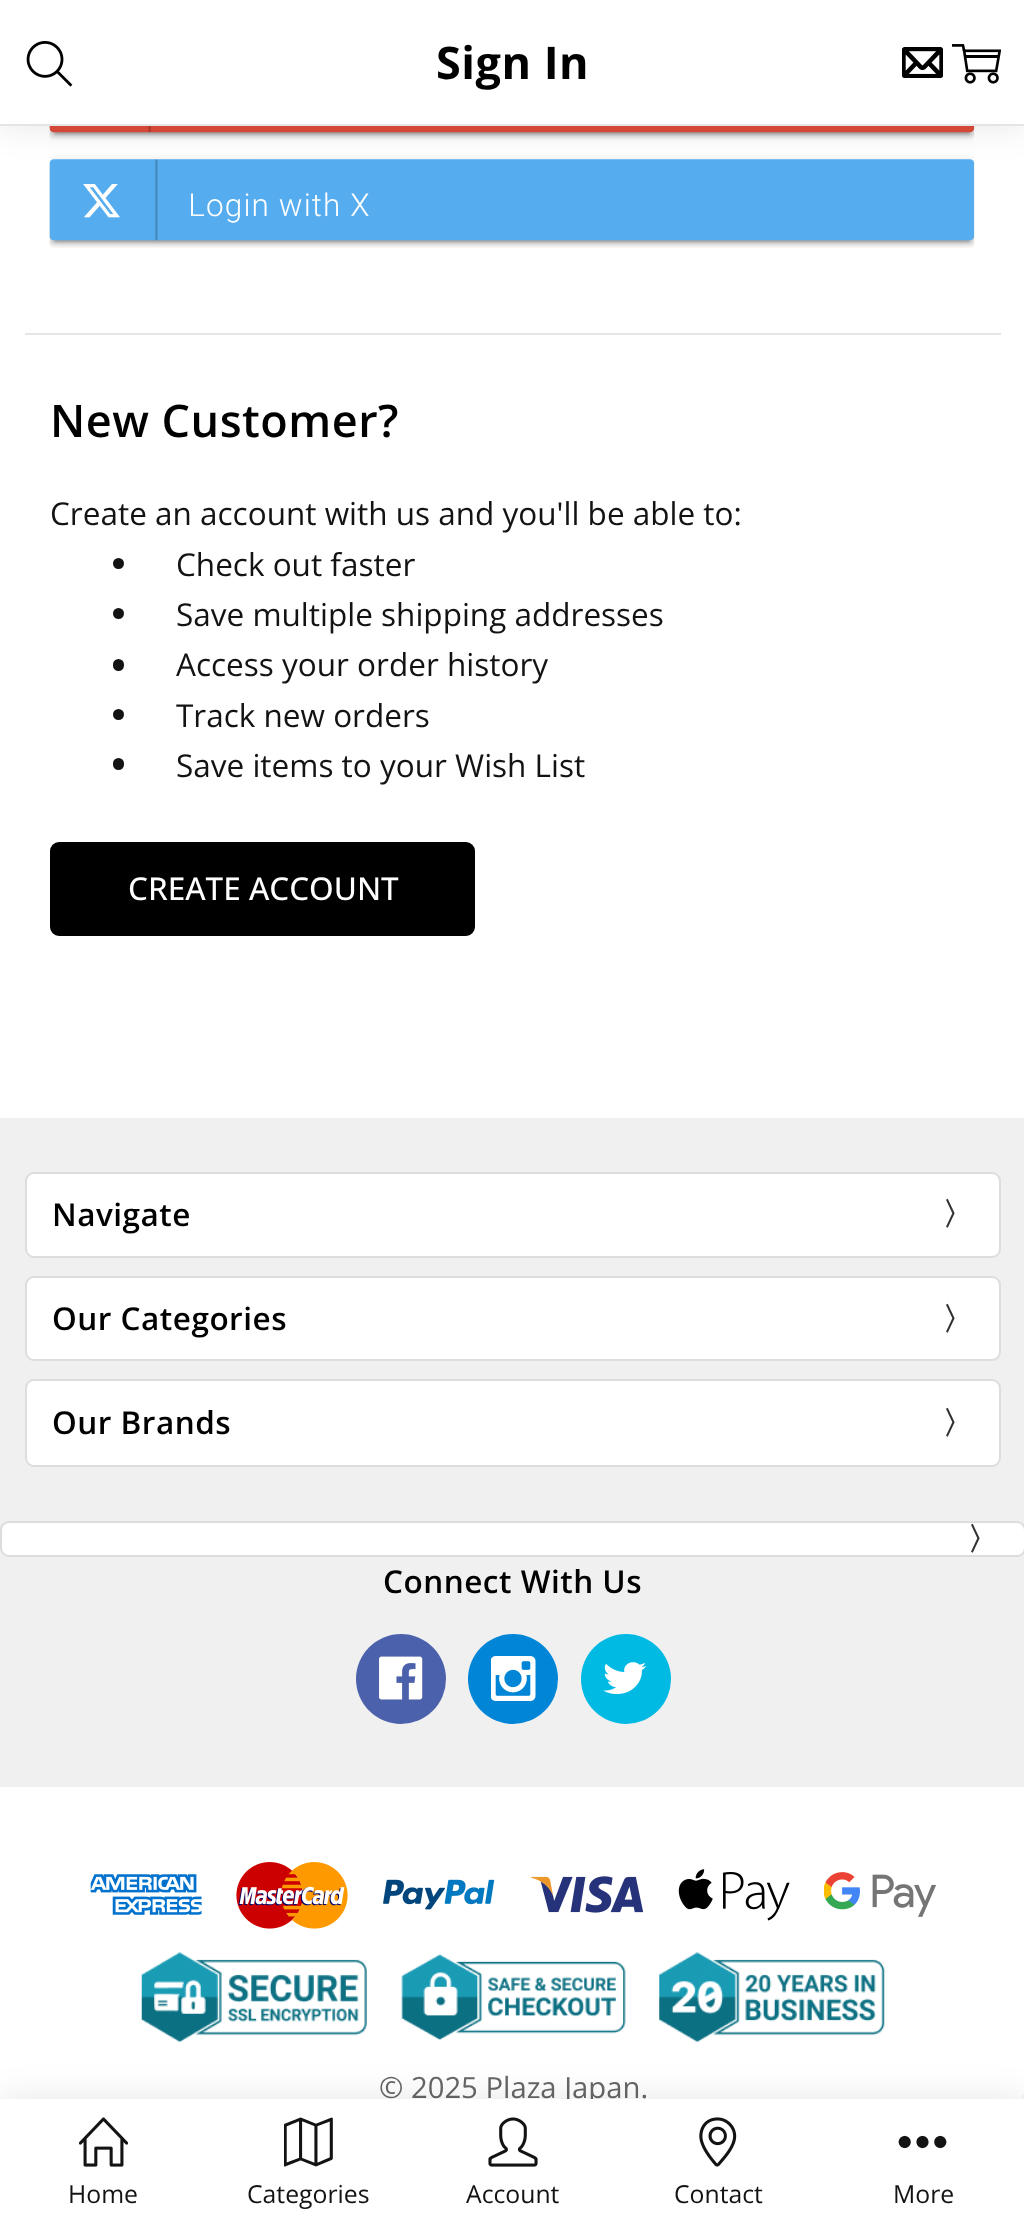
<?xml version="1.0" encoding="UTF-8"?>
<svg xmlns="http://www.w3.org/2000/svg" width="1024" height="2223">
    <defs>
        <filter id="blur1" x="-50%" y="-200%" width="200%" height="500%"><feGaussianBlur stdDeviation="17"/></filter>
    </defs>
    <rect width="100%" height="100%" fill="#FFFFFF"/>
    <image x="49" y="126" width="926" height="122" href="img_04.png"/>
    <rect x="0" y="0" width="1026" height="126" fill="#000000" fill-opacity="0.1" filter="url(#blur1)"/>
    <rect x="0" y="0" width="1024" height="124" fill="#FFFFFF"/>
    <rect x="0" y="124" width="1024" height="2" fill="#E5E5E5"/>
    <image x="26" y="41" width="47" height="46" href="img_01.png"/>
    <image x="902" y="47" width="41" height="31" href="img_02.png"/>
    <image x="952" y="44" width="49" height="40" href="img_03.png"/>
    <text x="436" y="79" font-family="Open Sans" font-size="45" font-weight="700" letter-spacing="0.5" fill="#000000">Sign In</text>
    <rect x="25" y="333" width="976" height="2" fill="#E5E5E5"/>
    <text x="50" y="437" font-family="Open Sans" font-size="45" font-weight="600" letter-spacing="0.5" fill="#000000">New Customer?</text>
    <text x="50" y="525" font-family="Open Sans" font-size="31.5" fill="#131313">Create an account with us and you'll be able to:</text>
    <circle cx="118.5" cy="563.5" r="5.5" fill="#131313"/>
    <text x="176" y="576" font-family="Open Sans" font-size="31.5" fill="#131313">Check out faster</text>
    <circle cx="118.5" cy="613.5" r="5.5" fill="#131313"/>
    <text x="176" y="626" font-family="Open Sans" font-size="31.5" fill="#131313">Save multiple shipping addresses</text>
    <rect x="113" y="659" width="11" height="12" rx="5.5" fill="#131313"/>
    <text x="176" y="676" font-family="Open Sans" font-size="31.5" fill="#131313">Access your order history</text>
    <circle cx="118.5" cy="714.5" r="5.5" fill="#131313"/>
    <text x="176" y="727" font-family="Open Sans" font-size="31.5" fill="#131313">Track new orders</text>
    <rect x="113" y="758" width="11" height="12" rx="5.5" fill="#131313"/>
    <text x="176" y="777" font-family="Open Sans" font-size="31.5" fill="#131313">Save items to your Wish List</text>
    <rect x="51" y="843" width="423" height="92" rx="8" fill="#000000" stroke="#000000" stroke-width="2"/>
    <text x="128" y="900" font-family="Open Sans" font-size="31.5" font-weight="500" fill="#FFFFFF">CREATE ACCOUNT</text>
    <rect x="0" y="1118" width="1024" height="669" fill="#F0F0F0"/>
    <rect x="26" y="1173" width="974" height="84" rx="8" fill="#FFFFFF" stroke="#DDDDDD" stroke-width="2"/>
    <text x="52" y="1226" font-family="Open Sans" font-size="31.5" font-weight="600" letter-spacing="0.5" fill="#000000">Navigate</text>
    <text x="942" y="1225" font-family="WenQuanYi Zen Hei" font-size="31.5" font-weight="700" letter-spacing="0.5" fill="#333333">〉</text>
    <rect x="26" y="1277" width="974" height="83" rx="8" fill="#FFFFFF" stroke="#DDDDDD" stroke-width="2"/>
    <text x="52" y="1330" font-family="Open Sans" font-size="31.5" font-weight="600" letter-spacing="0.5" fill="#000000">Our Categories</text>
    <text x="942" y="1330" font-family="WenQuanYi Zen Hei" font-size="31.5" font-weight="700" letter-spacing="0.5" fill="#333333">〉</text>
    <rect x="26" y="1380" width="974" height="86" rx="8" fill="#FFFFFF" stroke="#DDDDDD" stroke-width="2"/>
    <text x="52" y="1434" font-family="Open Sans" font-size="31.5" font-weight="600" letter-spacing="0.5" fill="#000000">Our Brands</text>
    <text x="942" y="1434" font-family="WenQuanYi Zen Hei" font-size="31.5" font-weight="700" letter-spacing="0.5" fill="#333333">〉</text>
    <rect x="1" y="1522" width="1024" height="34" rx="8" fill="#FFFFFF" stroke="#DDDDDD" stroke-width="2"/>
    <text x="967" y="1550" font-family="WenQuanYi Zen Hei" font-size="31.5" font-weight="700" letter-spacing="0.5" fill="#333333">〉</text>
    <text x="383" y="1593" font-family="Open Sans" font-size="31.5" font-weight="600" letter-spacing="0.5" fill="#000000">Connect With Us</text>
    <circle cx="401" cy="1679" r="45" fill="#4C61AC"/>
    <image x="379" y="1656" width="44" height="44" href="img_05.png"/>
    <circle cx="513" cy="1679" r="45" fill="#0085D7"/>
    <image x="491" y="1656" width="45" height="45" href="img_06.png"/>
    <circle cx="626" cy="1679" r="45" fill="#00BAE3"/>
    <image x="603" y="1662" width="44" height="33" href="img_07.png"/>
    <image x="90" y="1874" width="112" height="41" href="img_08.png"/>
    <image x="236" y="1862" width="112" height="67" href="img_09.png"/>
    <image x="383" y="1879" width="112" height="31" href="img_10.png"/>
    <image x="531" y="1876" width="113" height="37" href="img_11.png"/>
    <image x="678" y="1869" width="112" height="52" href="img_12.png"/>
    <image x="824" y="1872" width="112" height="45" href="img_13.png"/>
    <image x="141" y="1952" width="226" height="91" href="img_14.png"/>
    <image x="401" y="1954" width="225" height="87" href="img_15.png"/>
    <image x="659" y="1952" width="226" height="91" href="img_16.png"/>
    <text x="379" y="2098" font-family="Open Sans" font-size="29.25" fill="#666666">© 2025 Plaza Japan.</text>
    <rect x="1022" y="2095" width="2" height="5" fill="#F5F5F5"/>
    <rect x="0" y="2099" width="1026" height="124" fill="#000000" fill-opacity="0.1" filter="url(#blur1)"/>
    <rect x="0" y="2099" width="1024" height="124" fill="#FFFFFF"/>
    <image x="79" y="2117" width="49" height="50" href="img_17.png"/>
    <text x="68" y="2203" font-family="Open Sans" font-size="24.75" fill="#131313">Home</text>
    <image x="284" y="2117" width="49" height="50" href="img_18.png"/>
    <text x="247" y="2203" font-family="Open Sans" font-size="24.75" fill="#131313">Categories</text>
    <image x="488" y="2117" width="50" height="50" href="img_19.png"/>
    <text x="466" y="2203" font-family="Open Sans" font-size="24.75" fill="#131313">Account</text>
    <image x="699" y="2117" width="38" height="50" href="img_20.png"/>
    <text x="674" y="2203" font-family="Open Sans" font-size="24.75" fill="#131313">Contact</text>
    <image x="898" y="2135" width="49" height="14" href="img_21.png"/>
    <text x="893" y="2203" font-family="Open Sans" font-size="24.75" fill="#131313">More</text>
</svg>
